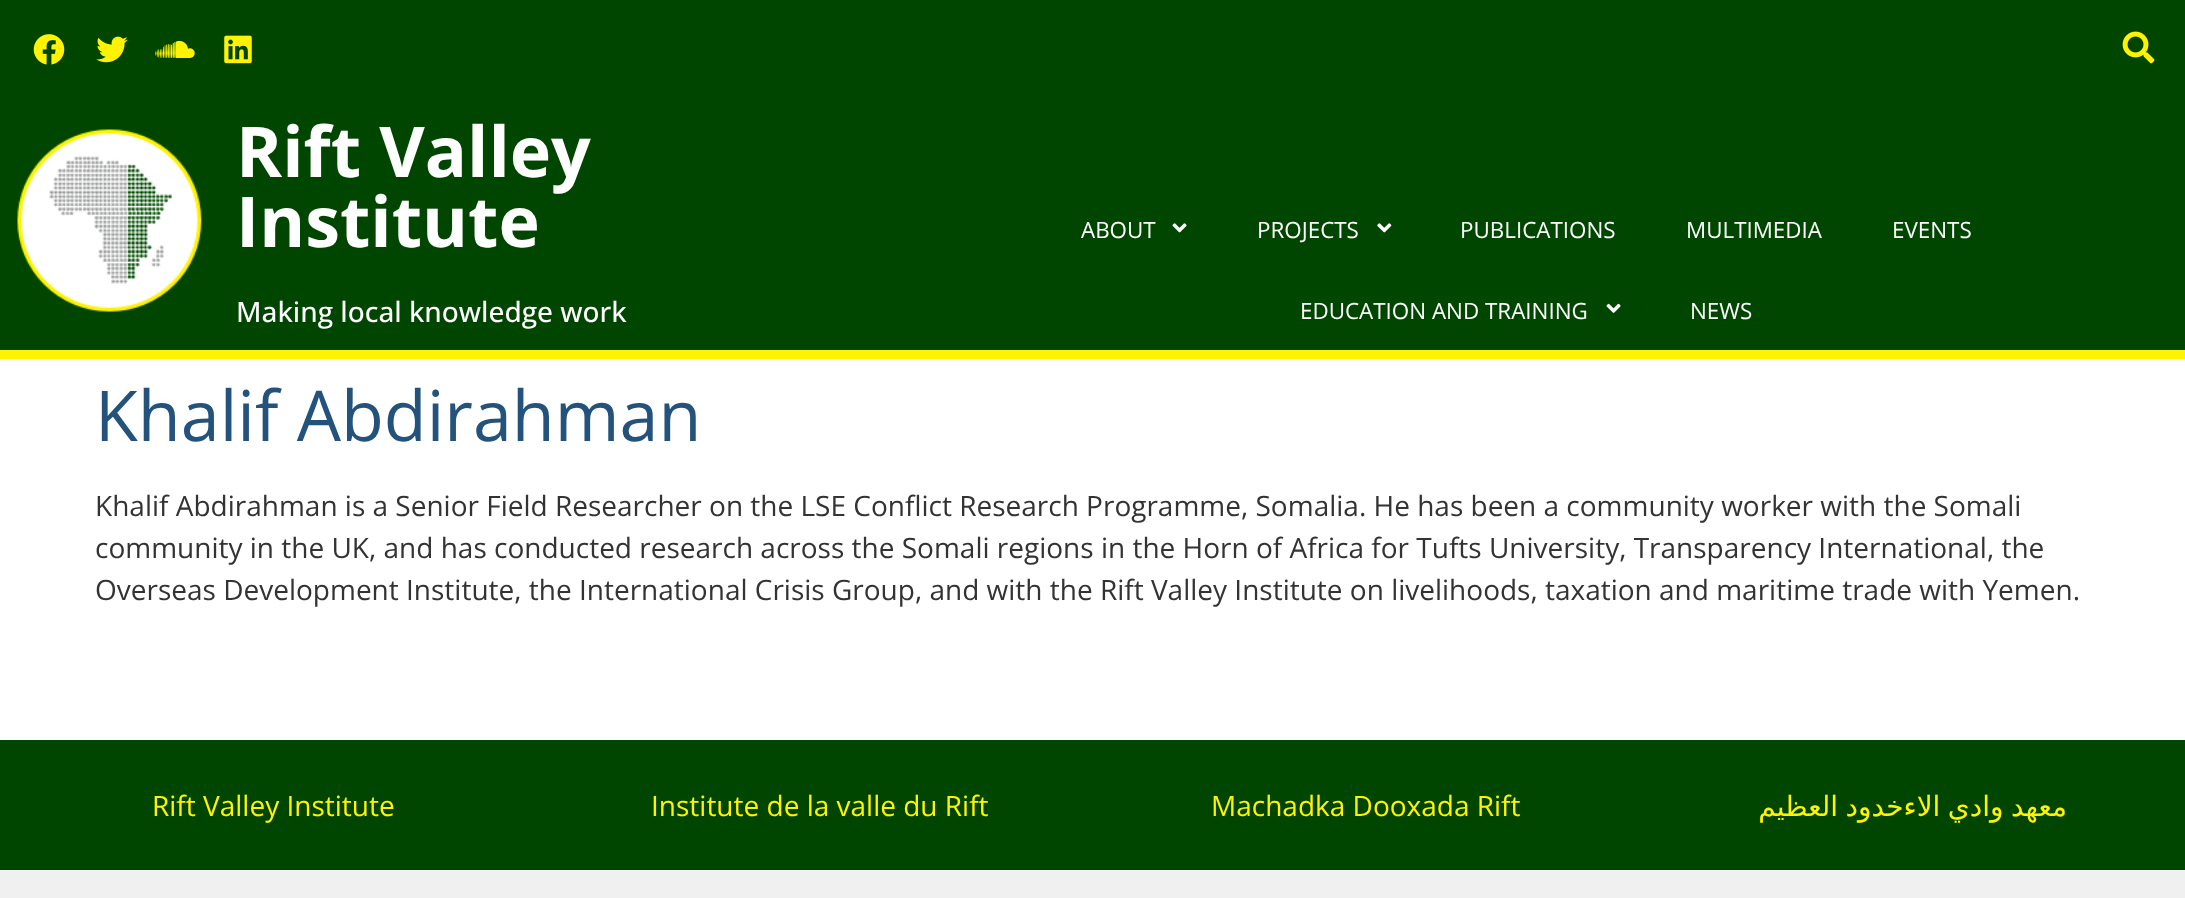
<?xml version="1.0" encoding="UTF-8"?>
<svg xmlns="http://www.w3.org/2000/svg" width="2185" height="898">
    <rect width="100%" height="100%" fill="#FFFFFF"/>
    <rect x="0" y="0" width="2185" height="350" fill="#004600"/>
    <image x="33" y="34" width="32" height="31" href="img_01.png"/>
    <image x="96" y="36" width="32" height="27" href="img_02.png"/>
    <image x="155" y="40" width="40" height="18" href="img_03.png"/>
    <image x="224" y="35" width="28" height="29" href="img_04.png"/>
    <image x="2122" y="31" width="33" height="33" href="img_05.png"/>
    <rect x="0" y="350" width="2185" height="9" fill="#FFF203"/>
    <image x="17" y="129" width="185" height="183" href="img_06.png"/>
    <text font-family="Open Sans" font-size="70" font-weight="700" fill="#FFFFFF">
        <tspan x="236" y="177">Rift Valley</tspan>
        <tspan x="236" y="247">Institute</tspan>
    </text>
    <text x="236" y="322" font-family="Open Sans" font-size="28" font-weight="500" fill="#FFFFFF">Making local knowledge work</text>
    <text x="1081" y="238" font-family="Open Sans" font-size="22.4" fill="#FFFFFF">ABOUT</text>
    <image x="1172" y="223" width="15" height="10" href="img_07.png"/>
    <text x="1257" y="238" font-family="Open Sans" font-size="22.4" fill="#FFFFFF">PROJECTS</text>
    <image x="1377" y="223" width="15" height="10" href="img_08.png"/>
    <text x="1460" y="238" font-family="Open Sans" font-size="22.4" fill="#FFFFFF">PUBLICATIONS</text>
    <text x="1686" y="238" font-family="Open Sans" font-size="22.4" fill="#FFFFFF">MULTIMEDIA</text>
    <text x="1892" y="238" font-family="Open Sans" font-size="22.4" fill="#FFFFFF">EVENTS</text>
    <text x="1300" y="319" font-family="Open Sans" font-size="22.4" fill="#FFFFFF">EDUCATION AND TRAINING</text>
    <image x="1606" y="303" width="15" height="10" href="img_09.png"/>
    <text x="1690" y="319" font-family="Open Sans" font-size="22.4" fill="#FFFFFF">NEWS</text>
    <text x="95" y="441" font-family="Open Sans" font-size="70" fill="#23527C">Khalif Abdirahman</text>
    <text font-family="Open Sans" font-size="28" fill="#333333">
        <tspan x="95" y="516">Khalif Abdirahman is a Senior Field Researcher on the LSE Conflict Research Programme, Somalia. He has been a community worker with the Somali</tspan>
        <tspan x="95" y="558">community in the UK, and has conducted research across the Somali regions in the Horn of Africa for Tufts University, Transparency International, the</tspan>
        <tspan x="95" y="600">Overseas Development Institute, the International Crisis Group, and with the Rift Valley Institute on livelihoods, taxation and maritime trade with Yemen.</tspan>
    </text>
    <rect x="0" y="740" width="2185" height="130" fill="#004600"/>
    <text x="152" y="816" font-family="Open Sans" font-size="28" fill="#FFF203">Rift Valley Institute</text>
    <text x="651" y="816" font-family="Open Sans" font-size="28" fill="#FFF203">Institute de la valle du Rift</text>
    <text x="1211" y="816" font-family="Open Sans" font-size="28" fill="#FFF203">Machadka Dooxada Rift</text>
    <text x="2067" y="816" word-spacing="-1.5" font-family="DejaVu Sans" font-size="28" direction="rtl" fill="#FFF203">معهد وادي الاءخدود العظيم</text>
    <rect x="0" y="870" width="2185" height="28" fill="#F0F0F0"/>
</svg>
